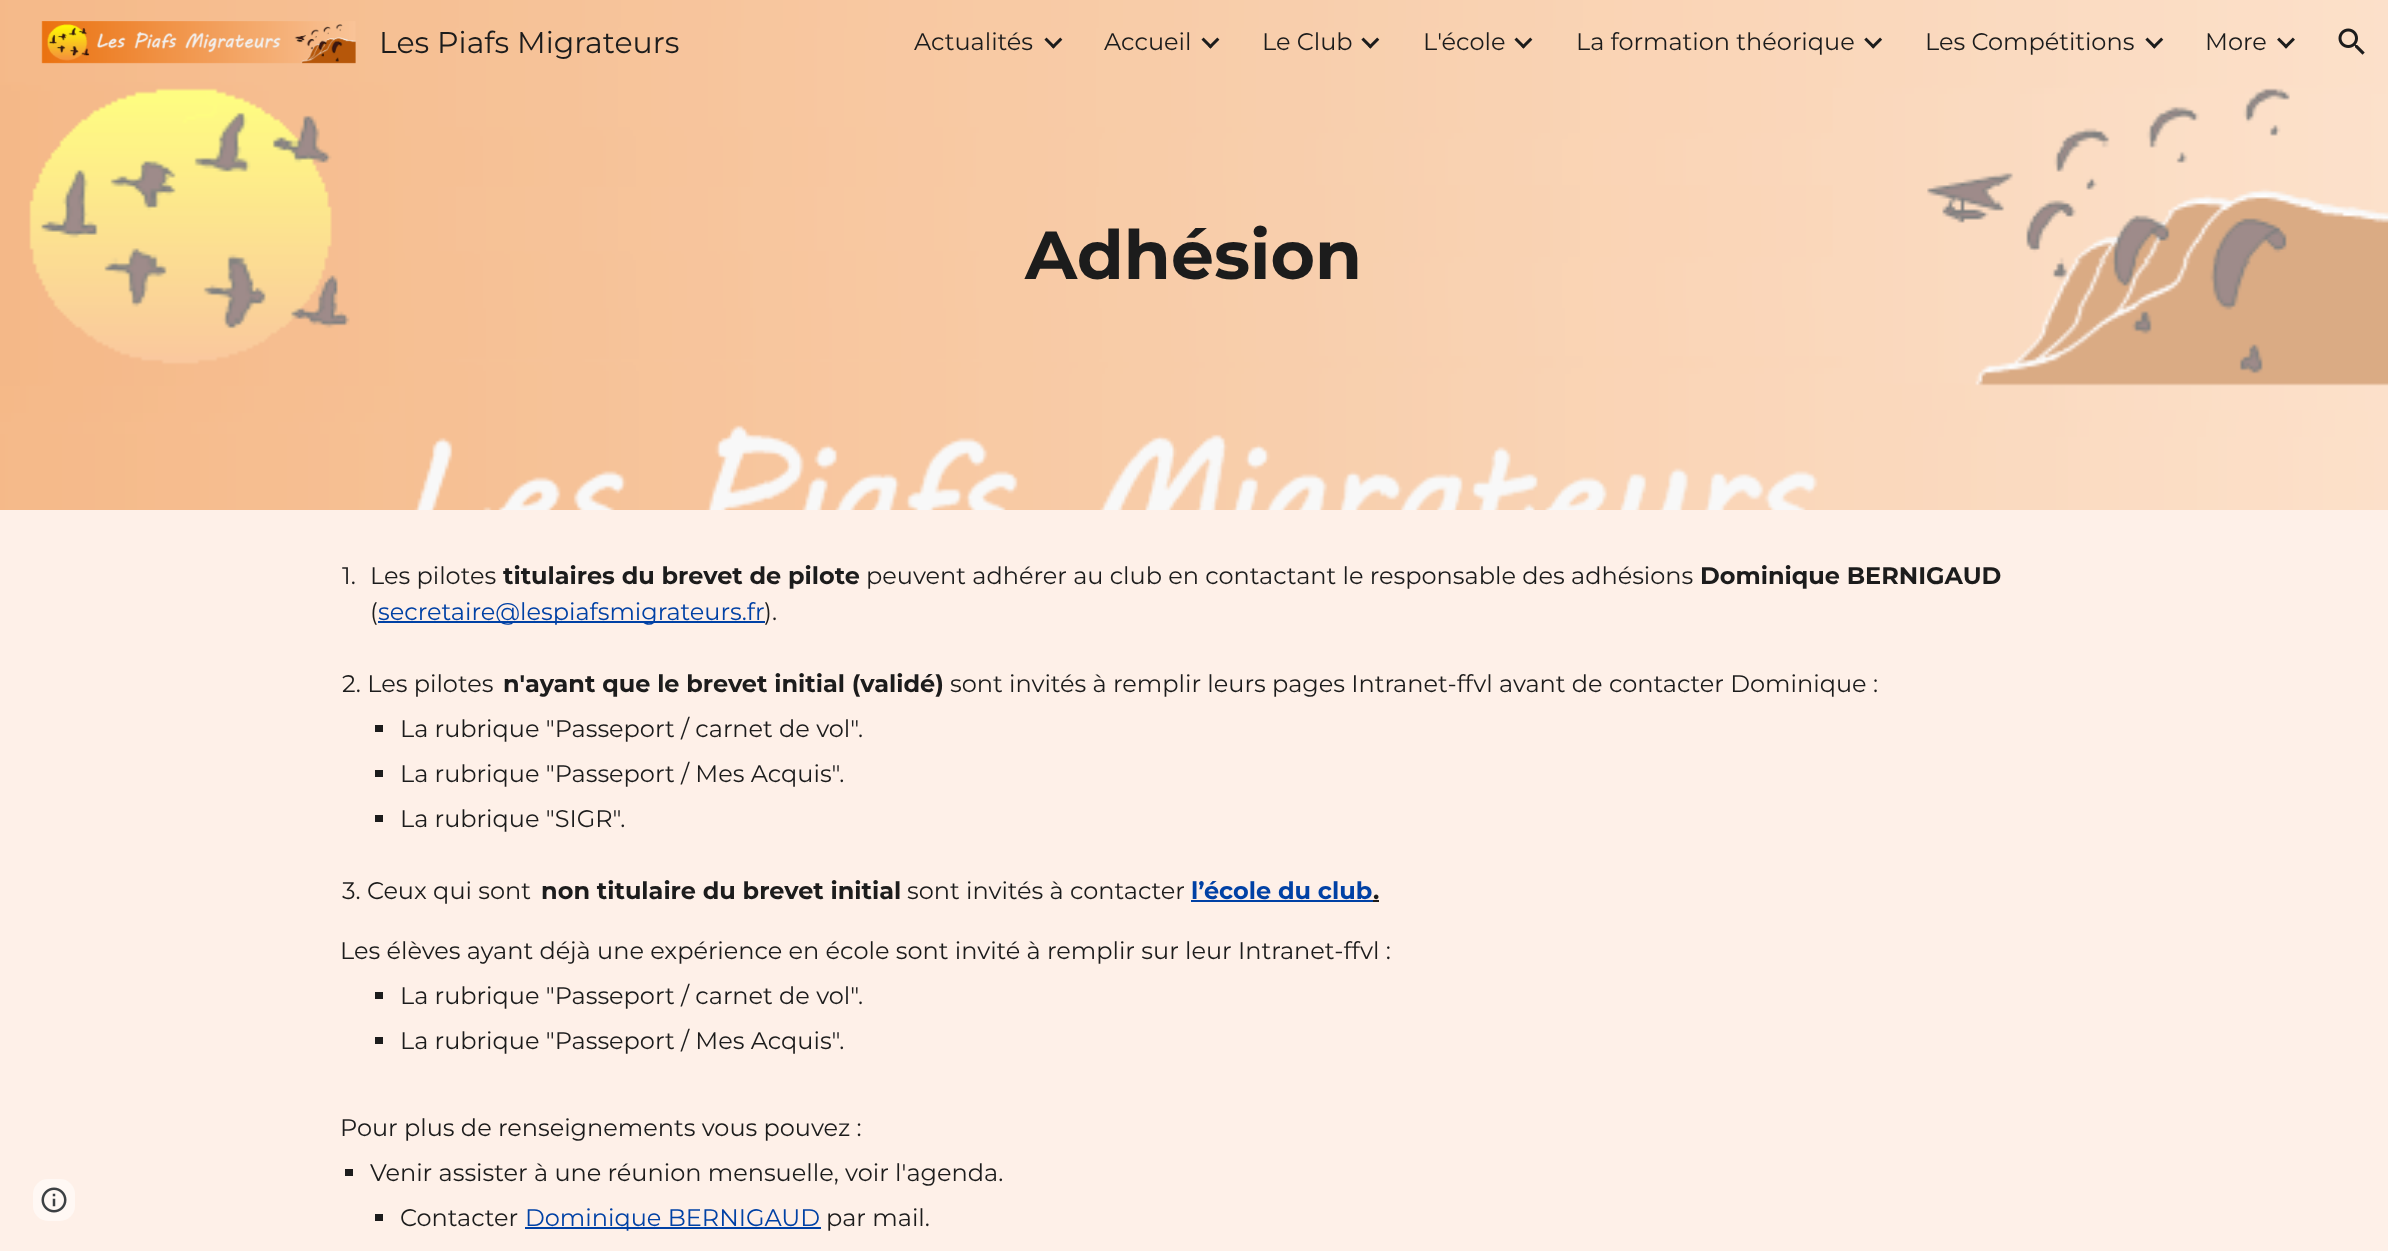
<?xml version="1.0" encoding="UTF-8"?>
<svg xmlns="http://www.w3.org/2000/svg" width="2388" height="1251">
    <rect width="100%" height="100%" fill="#FFFFFF"/>
    <image x="0" y="0" width="2388" height="510" href="img_11.png"/>
    <image x="41" y="21" width="315" height="43" href="img_01.png"/>
    <text x="379" y="53" font-family="Montserrat" font-size="30" fill="#1C1C1C">Les Piafs Migrateurs</text>
    <text x="914" y="50" font-family="Montserrat" font-size="24" fill="#1C1C1C">Actualités</text>
    <image x="1044" y="37" width="19" height="12" href="img_02.png"/>
    <text x="1104" y="50" font-family="Montserrat" font-size="24" fill="#1C1C1C">Accueil</text>
    <image x="1201" y="37" width="19" height="12" href="img_03.png"/>
    <text x="1262" y="50" font-family="Montserrat" font-size="24" fill="#1C1C1C">Le Club</text>
    <image x="1361" y="37" width="19" height="12" href="img_04.png"/>
    <text x="1423" y="50" font-family="Montserrat" font-size="24" fill="#1C1C1C">L'école</text>
    <image x="1514" y="37" width="19" height="12" href="img_05.png"/>
    <text x="1576" y="50" font-family="Montserrat" font-size="24" fill="#1C1C1C">La formation théorique</text>
    <image x="1864" y="37" width="19" height="12" href="img_06.png"/>
    <text x="1925" y="50" font-family="Montserrat" font-size="24" fill="#1C1C1C">Les Compétitions</text>
    <image x="2145" y="37" width="19" height="12" href="img_07.png"/>
    <text x="2205" y="50" font-family="Montserrat" font-size="24" fill="#1C1C1C">More</text>
    <image x="2277" y="37" width="18" height="12" href="img_08.png"/>
    <image x="2338" y="28" width="27" height="27" href="img_09.png"/>
    <rect x="0" y="510" width="2388" height="741" fill="#FEF0E8"/>
    <rect x="33" y="1179" width="42" height="42" rx="15" fill="#FFF8F4"/>
    <image x="41" y="1187" width="26" height="26" href="img_10.png"/>
    <text x="1025" y="279" font-family="Montserrat" font-size="68" font-weight="700" fill="#1C1C1C">Adhésion</text>
    <text x="503" y="584" font-family="Montserrat" font-size="24" font-weight="700" fill="#1C1C1C">titulaires du brevet de pilote</text>
    <text x="866" y="584" font-family="Montserrat" font-size="24" fill="#1C1C1C">peuvent adhérer au club en contactant le responsable des adhésions</text>
    <text x="1700" y="584" font-family="Montserrat" font-size="24" font-weight="700" fill="#1C1C1C">Dominique BERNIGAUD</text>
    <text x="370" y="620" font-family="Montserrat" font-size="24" fill="#1C1C1C">(</text>
    <rect x="378" y="621" width="387" height="2" fill="#0041A5"/>
    <text x="378" y="620" font-family="Montserrat" font-size="24" fill="#0041A5">secretaire@lespiafsmigrateurs.fr</text>
    <text x="764" y="620" font-family="Montserrat" font-size="24" fill="#1C1C1C">).</text>
    <text x="342" y="584" font-family="Montserrat" font-size="24" fill="#1C1C1C">1.</text>
    <text x="370" y="584" font-family="Montserrat" font-size="24" fill="#1C1C1C">Les pilotes</text>
    <text x="342" y="692" font-family="Montserrat" font-size="24" fill="#1C1C1C">2. Les pilotes</text>
    <text x="503" y="692" font-family="Montserrat" font-size="24" font-weight="700" fill="#1C1C1C">n'ayant que le brevet initial (validé)</text>
    <text x="950" y="692" font-family="Montserrat" font-size="24" fill="#1C1C1C">sont invités à remplir leurs pages Intranet-ffvl avant de contacter Dominique :</text>
    <rect x="375" y="725" width="8" height="7" fill="#1C1C1C"/>
    <text x="400" y="737" font-family="Montserrat" font-size="24" fill="#1C1C1C">La rubrique "Passeport / carnet de vol".</text>
    <rect x="375" y="770" width="8" height="7" fill="#1C1C1C"/>
    <text x="400" y="782" font-family="Montserrat" font-size="24" fill="#1C1C1C">La rubrique "Passeport / Mes Acquis".</text>
    <rect x="375" y="815" width="8" height="7" fill="#1C1C1C"/>
    <text x="400" y="827" font-family="Montserrat" font-size="24" fill="#1C1C1C">La rubrique "SIGR".</text>
    <text x="342" y="899" font-family="Montserrat" font-size="24" fill="#1C1C1C">3. Ceux qui sont</text>
    <text x="541" y="899" font-family="Montserrat" font-size="24" font-weight="700" fill="#1C1C1C">non titulaire du brevet initial</text>
    <text x="907" y="899" font-family="Montserrat" font-size="24" fill="#1C1C1C">sont invités à contacter</text>
    <text x="1191" y="899" font-family="Montserrat" font-size="24" font-weight="700" fill="#0041A5">l’école du club</text>
    <rect x="1191" y="900" width="182" height="2" fill="#0041A5"/>
    <text x="1373" y="899" font-family="Montserrat" font-size="24" font-weight="700" fill="#1C1C1C">.</text>
    <rect x="1373" y="900" width="6" height="2" fill="#1C1C1C"/>
    <text x="340" y="959" font-family="Montserrat" font-size="24" fill="#1C1C1C">Les élèves ayant déjà une expérience en école sont invité à remplir sur leur Intranet-ffvl :</text>
    <rect x="375" y="992" width="8" height="7" fill="#1C1C1C"/>
    <text x="400" y="1004" font-family="Montserrat" font-size="24" fill="#1C1C1C">La rubrique "Passeport / carnet de vol".</text>
    <rect x="375" y="1037" width="8" height="7" fill="#1C1C1C"/>
    <text x="400" y="1049" font-family="Montserrat" font-size="24" fill="#1C1C1C">La rubrique "Passeport / Mes Acquis".</text>
    <text x="340" y="1136" font-family="Montserrat" font-size="24" fill="#1C1C1C">Pour plus de renseignements vous pouvez :</text>
    <rect x="345" y="1169" width="8" height="7" fill="#1C1C1C"/>
    <text x="370" y="1181" font-family="Montserrat" font-size="24" fill="#1C1C1C">Venir assister à une réunion mensuelle, voir l'agenda.</text>
    <rect x="375" y="1214" width="8" height="7" fill="#1C1C1C"/>
    <text x="400" y="1226" font-family="Montserrat" font-size="24" fill="#1C1C1C">Contacter</text>
    <rect x="525" y="1227" width="296" height="2" fill="#0041A5"/>
    <text x="525" y="1226" font-family="Montserrat" font-size="24" fill="#0041A5">Dominique BERNIGAUD</text>
    <text x="826" y="1226" font-family="Montserrat" font-size="24" fill="#1C1C1C">par mail.</text>
</svg>
